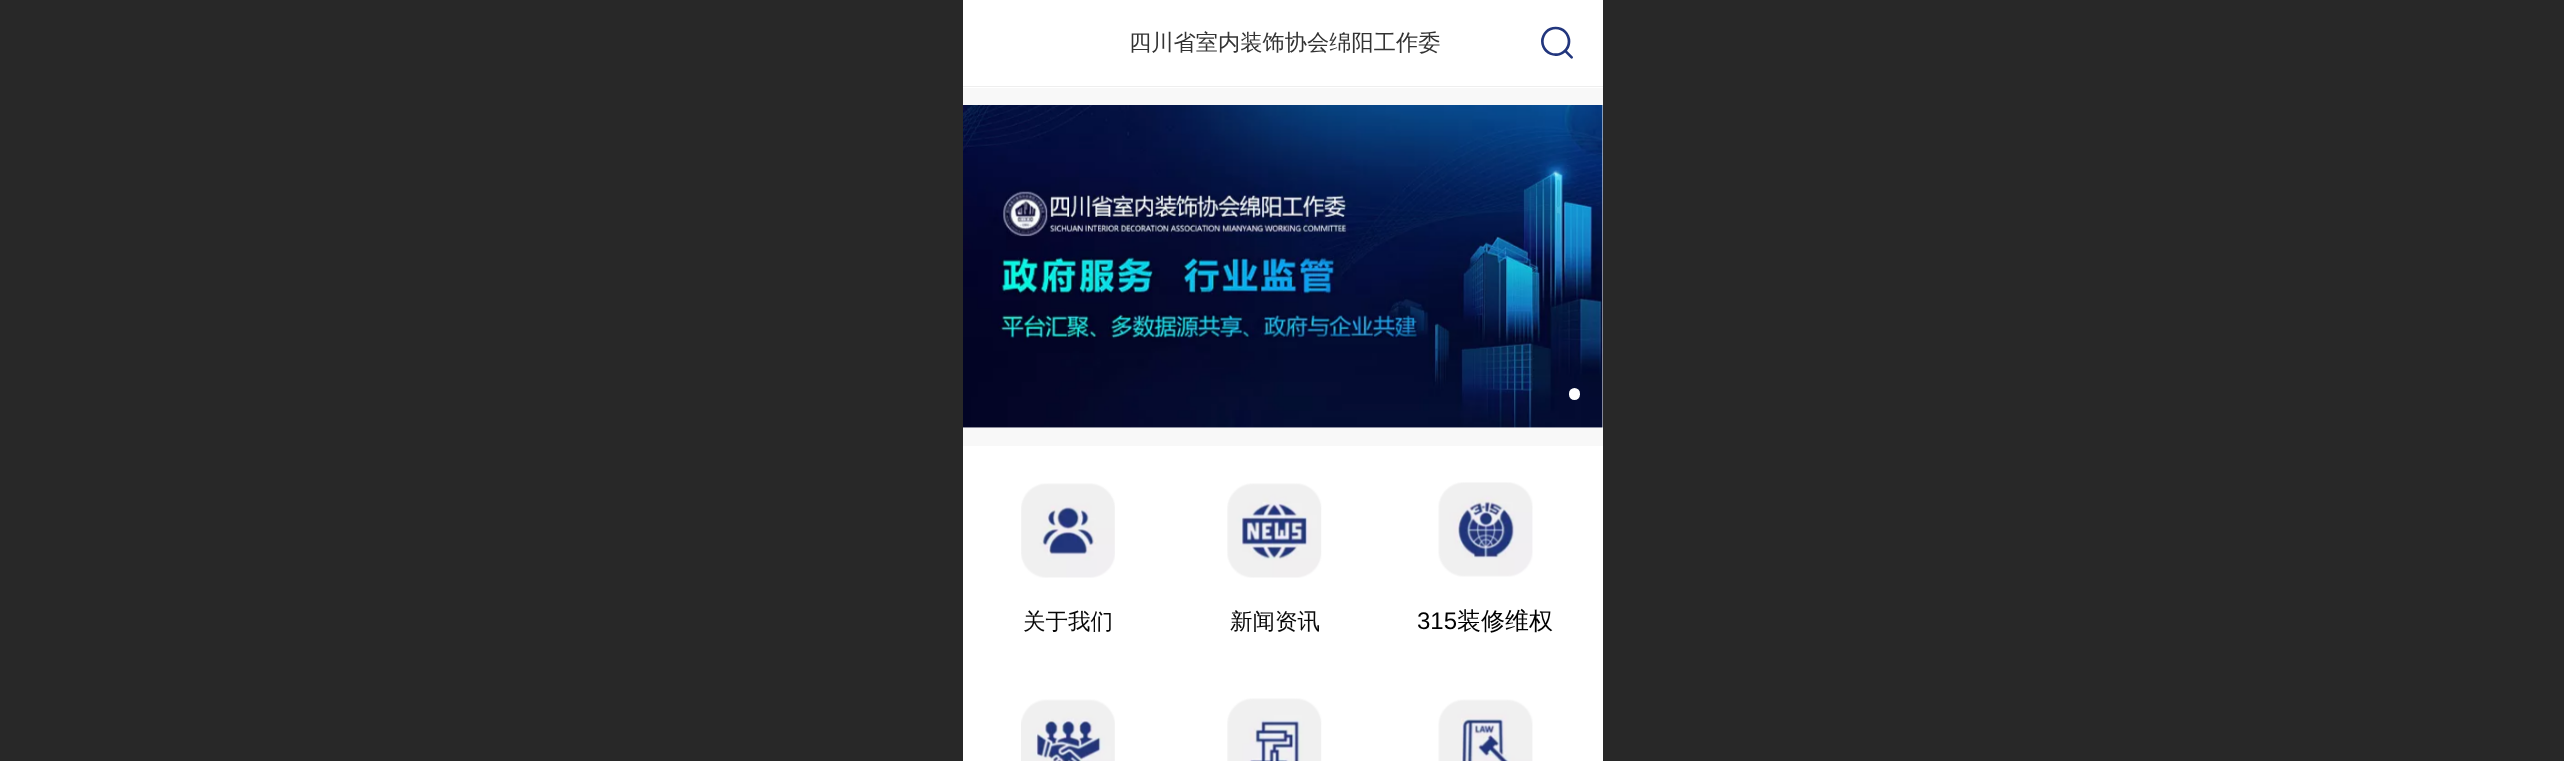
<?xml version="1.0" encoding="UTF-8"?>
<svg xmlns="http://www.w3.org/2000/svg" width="2564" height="761">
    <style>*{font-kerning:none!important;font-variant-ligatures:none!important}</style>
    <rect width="100%" height="100%" fill="#F8F8F8"/>
    <rect x="0" y="0" width="963" height="761" fill="#282828"/>
    <rect x="963" y="0" width="640" height="88" fill="#FFFFFF"/>
    <rect x="963" y="86" width="640" height="1" fill="#EEEEEE"/>
    <text x="1129" y="50" font-family="WenQuanYi Zen Hei" font-size="22.25" font-weight="500" fill="#333333">四川省室内装饰协会绵阳工作委</text>
    <text x="1541" y="56" font-family="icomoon" font-size="32" fill="#22367D">򰊐</text>
    <rect x="963" y="105" width="640" height="323" fill="#FFFFFF"/>
    <image x="963" y="105" width="640" height="323" href="img_01.png"/>
    <rect x="1569" y="388" width="11" height="12" rx="5.5" fill="#FFFFFF"/>
    <rect x="963" y="446" width="640" height="315" fill="#FFFFFF"/>
    <image x="1021" y="483" width="94" height="95" href="img_02.png"/>
    <text x="1023" y="629" font-family="WenQuanYi Zen Hei" font-size="22.5" font-weight="500" fill="#080808">关于我们</text>
    <image x="1227" y="483" width="95" height="95" href="img_03.png"/>
    <text x="1230" y="629" font-family="WenQuanYi Zen Hei" font-size="22.5" font-weight="500" fill="#080808">新闻资讯</text>
    <image x="1438" y="482" width="95" height="95" href="img_04.png"/>
    <text x="1417" y="629" font-family="Liberation Sans" font-size="24" fill="#000000">315</text>
    <text x="1457" y="629" font-family="WenQuanYi Zen Hei" font-size="24" font-weight="500" fill="#000000">装修维权</text>
    <image x="1021" y="699" width="94" height="62" href="img_05.png"/>
    <image x="1227" y="698" width="95" height="63" href="img_06.png"/>
    <image x="1438" y="699" width="95" height="62" href="img_07.png"/>
    <rect x="1603" y="0" width="961" height="761" fill="#282828"/>
</svg>
